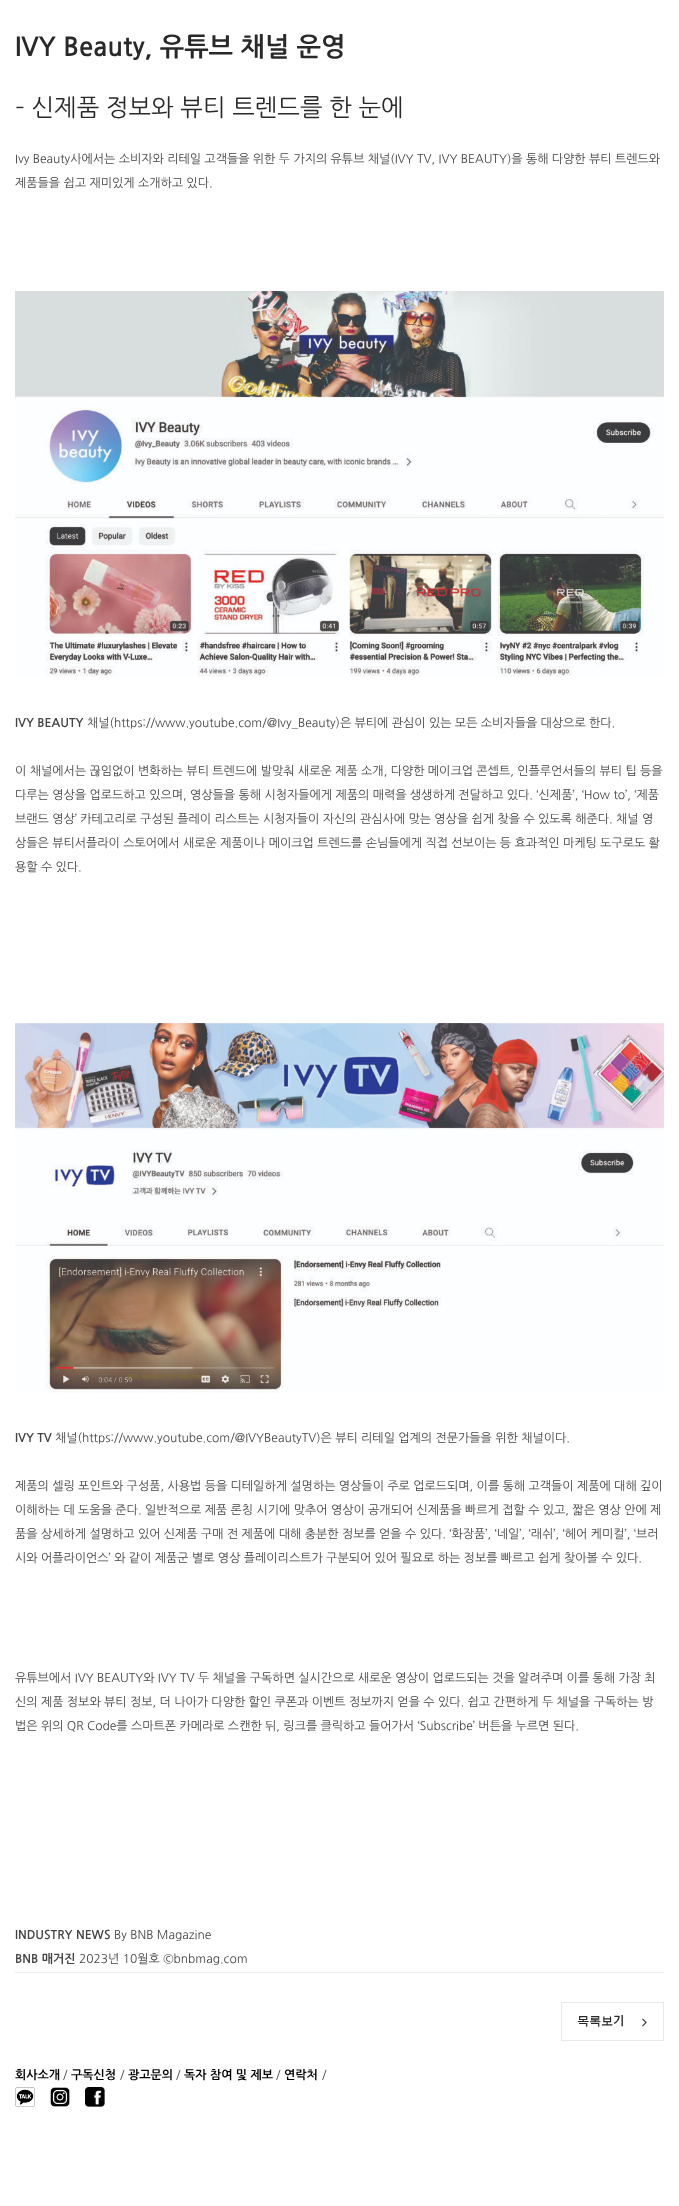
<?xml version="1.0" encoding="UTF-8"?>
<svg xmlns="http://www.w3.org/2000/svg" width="679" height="2206">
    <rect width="100%" height="100%" fill="#FFFFFF"/>
    <text x="15" y="56" font-family="NanumGothic" font-size="26" font-weight="700" fill="#292929">IVY Beauty, 유튜브 채널 운영</text>
    <text x="15" y="116" font-family="NanumGothic" font-size="24" fill="#292929">– 신제품 정보와 뷰티 트렌드를 한 눈에</text>
    <text x="15" y="163" font-family="NanumGothic" font-size="12" fill="#444444">Ivy Beauty사에서는 소비자와 리테일 고객들을 위한 두 가지의 유튜브 채널(IVY TV, IVY BEAUTY)을 통해 다양한 뷰티 트렌드와</text>
    <text x="15" y="187" font-family="NanumGothic" font-size="12" fill="#444444">제품들을 쉽고 재미있게 소개하고 있다.</text>
    <image x="15" y="291" width="649" height="386" href="img_01.png"/>
    <text x="15" y="727" font-family="NanumGothic" font-size="12" font-weight="700" fill="#444444">IVY BEAUTY</text>
    <text x="87" y="727" font-family="NanumGothic" font-size="12" fill="#444444">채널(https://www.youtube.com/@Ivy_Beauty)은 뷰티에 관심이 있는 모든 소비자들을 대상으로 한다.</text>
    <text x="15" y="775" font-family="NanumGothic" font-size="12" fill="#444444">이 채널에서는 끊임없이 변화하는 뷰티 트렌드에 발맞춰 새로운 제품 소개, 다양한 메이크업 콘셉트, 인플루언서들의 뷰티 팁 등을</text>
    <text x="15" y="799" font-family="NanumGothic" font-size="12" fill="#444444">다루는 영상을 업로드하고 있으며, 영상들을 통해 시청자들에게 제품의 매력을 생생하게 전달하고 있다. ‘신제품’, ‘How to’, ‘제품</text>
    <text x="15" y="823" font-family="NanumGothic" font-size="12" fill="#444444">브랜드 영상’ 카테고리로 구성된 플레이 리스트는 시청자들이 자신의 관심사에 맞는 영상을 쉽게 찾을 수 있도록 해준다. 채널 영</text>
    <text x="15" y="847" font-family="NanumGothic" font-size="12" fill="#444444">상들은 뷰티서플라이 스토어에서 새로운 제품이나 메이크업 트렌드를 손님들에게 직접 선보이는 등 효과적인 마케팅 도구로도 활</text>
    <text x="15" y="871" font-family="NanumGothic" font-size="12" fill="#444444">용할 수 있다.</text>
    <image x="15" y="1023" width="649" height="370" href="img_02.png"/>
    <text x="15" y="1442" font-family="NanumGothic" font-size="12" font-weight="700" fill="#444444">IVY TV</text>
    <text x="55" y="1442" font-family="NanumGothic" font-size="12" fill="#444444">채널(https://www.youtube.com/@IVYBeautyTV)은 뷰티 리테일 업계의 전문가들을 위한 채널이다.</text>
    <text x="15" y="1490" font-family="NanumGothic" font-size="12" fill="#444444">제품의 셀링 포인트와 구성품, 사용법 등을 디테일하게 설명하는 영상들이 주로 업로드되며, 이를 통해 고객들이 제품에 대해 깊이</text>
    <text x="15" y="1514" font-family="NanumGothic" font-size="12" fill="#444444">이해하는 데 도움을 준다. 일반적으로 제품 론칭 시기에 맞추어 영상이 공개되어 신제품을 빠르게 접할 수 있고, 짧은 영상 안에 제</text>
    <text x="15" y="1538" font-family="NanumGothic" font-size="12" fill="#444444">품을 상세하게 설명하고 있어 신제품 구매 전 제품에 대해 충분한 정보를 얻을 수 있다. ‘화장품’, ‘네일’, ‘래쉬’, ‘헤어 케미컬’, ‘브러</text>
    <text x="15" y="1562" font-family="NanumGothic" font-size="12" fill="#444444">시와 어플라이언스’ 와 같이 제품군 별로 영상 플레이리스트가 구분되어 있어 필요로 하는 정보를 빠르고 쉽게 찾아볼 수 있다.</text>
    <text x="15" y="1682" font-family="NanumGothic" font-size="12" fill="#444444">유튜브에서 IVY BEAUTY와 IVY TV 두 채널을 구독하면 실시간으로 새로운 영상이 업로드되는 것을 알려주며 이를 통해 가장 최</text>
    <text x="15" y="1706" font-family="NanumGothic" font-size="12" fill="#444444">신의 제품 정보와 뷰티 정보, 더 나아가 다양한 할인 쿠폰과 이벤트 정보까지 얻을 수 있다. 쉽고 간편하게 두 채널을 구독하는 방</text>
    <text x="15" y="1730" font-family="NanumGothic" font-size="12" fill="#444444">법은 위의 QR Code를 스마트폰 카메라로 스캔한 뒤, 링크를 클릭하고 들어가서 ‘Subscribe’ 버튼을 누르면 된다.</text>
    <text x="15" y="1939" font-family="NanumGothic" font-size="12" font-weight="700" fill="#444444">INDUSTRY NEWS</text>
    <text x="114" y="1939" font-family="NanumGothic" font-size="12" fill="#444444">By BNB Magazine</text>
    <text x="15" y="1963" font-family="NanumGothic" font-size="12" font-weight="700" fill="#444444">BNB 매거진</text>
    <text x="79" y="1963" font-family="NanumGothic" font-size="12" fill="#444444">2023년 10월호 ©bnbmag.com</text>
    <rect x="15" y="1972" width="649" height="1" fill="#EBEBEB"/>
    <rect x="561.5" y="2002.5" width="102" height="38" fill="none" stroke="#E8E8E8"/>
    <text x="577" y="2025" font-family="WenQuanYi Zen Hei" font-size="12" font-weight="700" fill="#292929">목록보</text>
    <text x="613" y="2025" font-family="NanumGothic" font-size="12" font-weight="700" fill="#292929">기</text>
    <image x="642" y="2018" width="5" height="9" href="img_03.png"/>
    <text x="15" y="2079" font-family="NanumGothic" font-size="12" font-weight="700" fill="#000000">회사소개</text>
    <text x="63" y="2079" font-family="NanumGothic" font-size="12" fill="#444444">/</text>
    <text x="71" y="2079" font-family="NanumGothic" font-size="12" font-weight="700" fill="#000000">구독신청</text>
    <text x="120" y="2079" font-family="NanumGothic" font-size="12" fill="#444444">/</text>
    <text x="128" y="2079" font-family="NanumGothic" font-size="12" font-weight="700" fill="#000000">광고문의</text>
    <text x="176" y="2079" font-family="NanumGothic" font-size="12" fill="#444444">/</text>
    <text x="184" y="2079" font-family="NanumGothic" font-size="12" font-weight="700" fill="#000000">독자 참여 및 제보</text>
    <text x="276" y="2079" font-family="NanumGothic" font-size="12" fill="#444444">/</text>
    <text x="284" y="2079" font-family="NanumGothic" font-size="12" font-weight="700" fill="#000000">연락처</text>
    <text x="322" y="2079" font-family="NanumGothic" font-size="12" fill="#444444">/</text>
    <image x="15" y="2087" width="20" height="20" href="img_04.png"/>
    <image x="50" y="2087" width="20" height="20" href="img_05.png"/>
    <image x="85" y="2087" width="20" height="20" href="img_06.png"/>
</svg>
